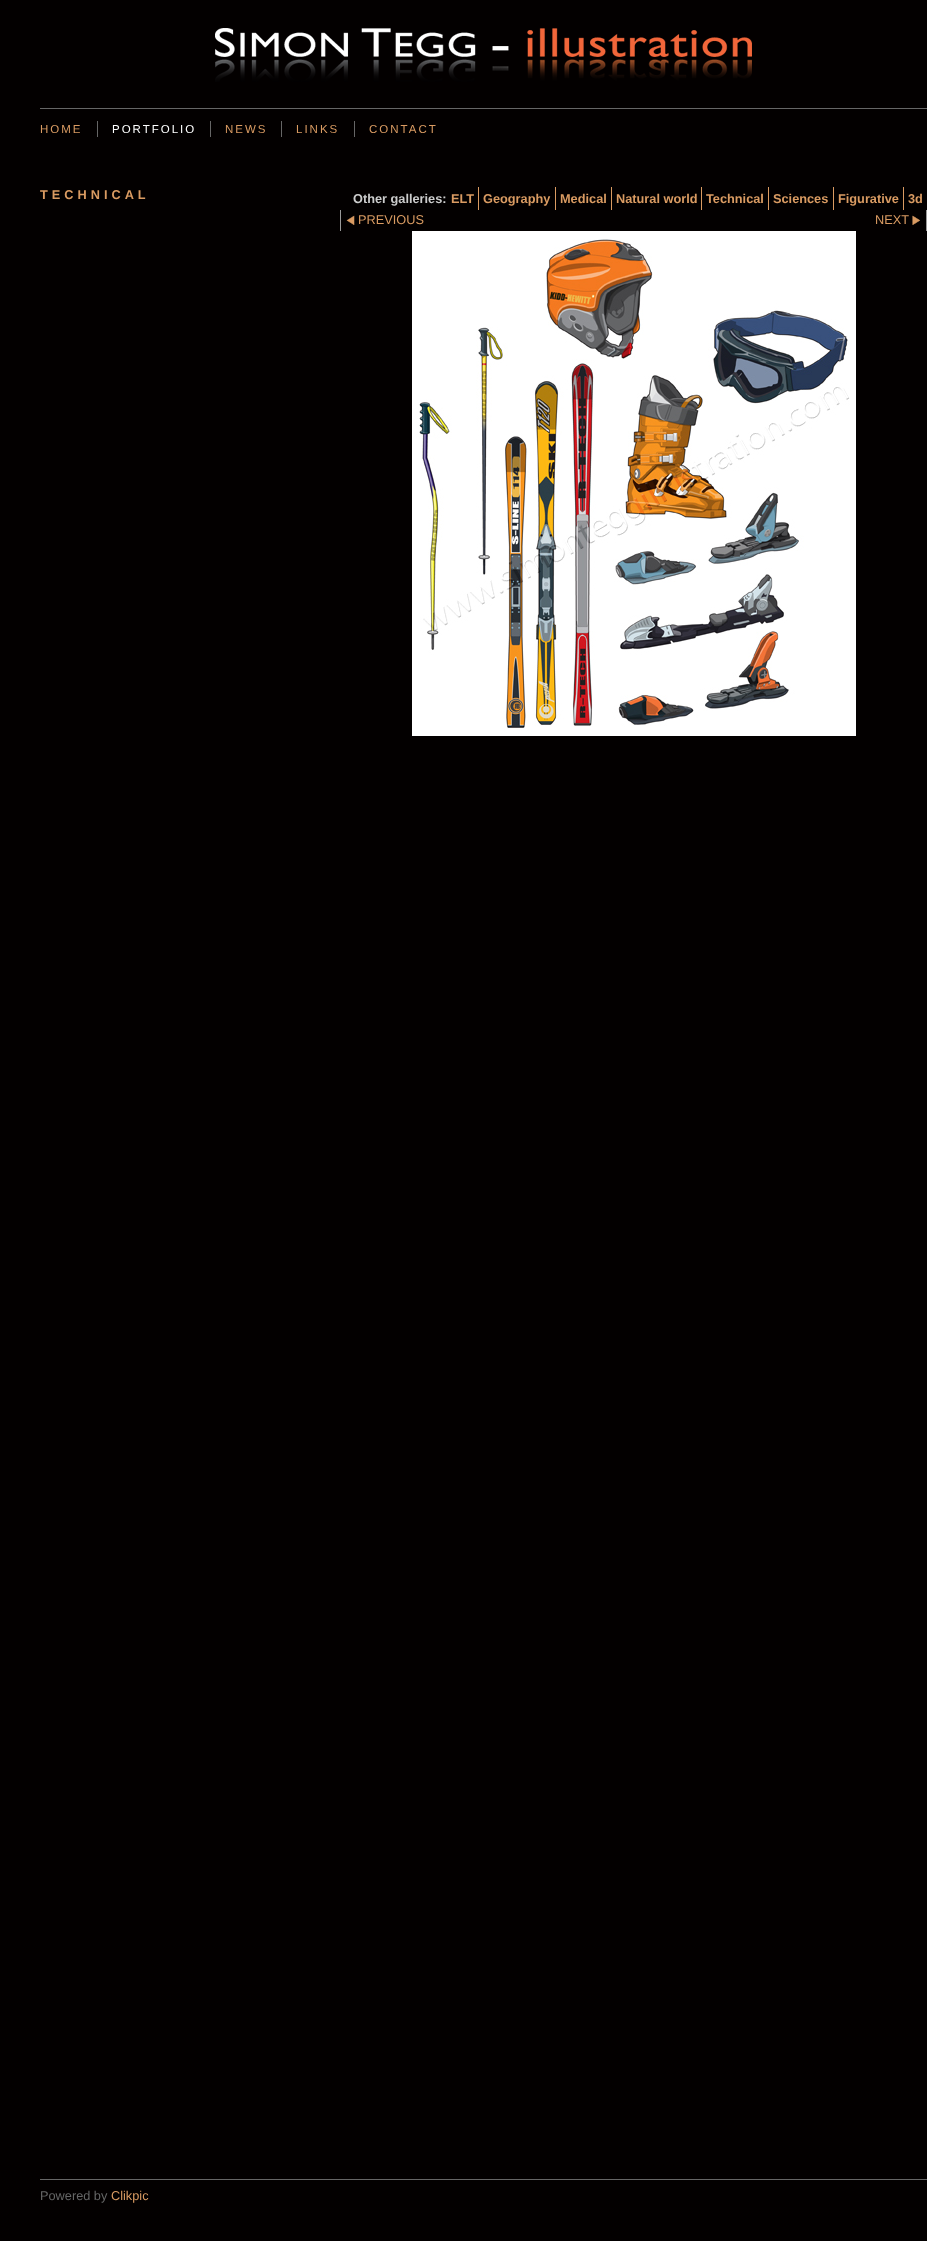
<?xml version="1.0" encoding="UTF-8"?>
<svg xmlns="http://www.w3.org/2000/svg" width="927" height="2241">
    <rect width="100%" height="100%" fill="#030000"/>
    <rect x="40" y="108" width="887" height="1" fill="#666666"/>
    <image x="215" y="28" width="537" height="54" href="img_01.png"/>
    <text x="40" y="133" font-family="Liberation Sans" font-size="11.5" letter-spacing="2" fill="#DA9B62">HOME</text>
    <rect x="97" y="121" width="1" height="16" fill="#666666"/>
    <text x="112" y="133" font-family="Liberation Sans" font-size="11.5" letter-spacing="2" fill="#FFFFFF">PORTFOLIO</text>
    <rect x="210" y="121" width="1" height="16" fill="#666666"/>
    <text x="225" y="133" font-family="Liberation Sans" font-size="11.5" letter-spacing="2" fill="#DA9B62">NEWS</text>
    <rect x="281" y="121" width="1" height="16" fill="#666666"/>
    <text x="296" y="133" font-family="Liberation Sans" font-size="11.5" letter-spacing="2" fill="#DA9B62">LINKS</text>
    <rect x="354" y="121" width="1" height="16" fill="#666666"/>
    <text x="369" y="133" font-family="Liberation Sans" font-size="11.5" letter-spacing="2" fill="#DA9B62">CONTACT</text>
    <text x="40" y="199" font-family="Liberation Sans" font-size="12.75" font-weight="700" letter-spacing="4" fill="#DA9B62">TECHNICAL</text>
    <text x="353" y="203" font-family="Liberation Sans" font-size="12.75" font-weight="700" fill="#CCCCCC">Other galleries:</text>
    <text x="451" y="203" font-family="Liberation Sans" font-size="12.75" font-weight="700" fill="#DA9B62">ELT</text>
    <rect x="478" y="187" width="1" height="23" fill="#DA9B62"/>
    <text x="483" y="203" font-family="Liberation Sans" font-size="12.75" font-weight="700" fill="#DA9B62">Geography</text>
    <rect x="555" y="187" width="1" height="23" fill="#DA9B62"/>
    <text x="560" y="203" font-family="Liberation Sans" font-size="12.75" font-weight="700" fill="#DA9B62">Medical</text>
    <rect x="611" y="187" width="1" height="23" fill="#DA9B62"/>
    <text x="616" y="203" font-family="Liberation Sans" font-size="12.75" font-weight="700" fill="#DA9B62">Natural world</text>
    <rect x="701" y="187" width="1" height="23" fill="#DA9B62"/>
    <text x="706" y="203" font-family="Liberation Sans" font-size="12.75" font-weight="700" fill="#DA9B62">Technical</text>
    <rect x="768" y="187" width="1" height="23" fill="#DA9B62"/>
    <text x="773" y="203" font-family="Liberation Sans" font-size="12.75" font-weight="700" fill="#DA9B62">Sciences</text>
    <rect x="833" y="187" width="1" height="23" fill="#DA9B62"/>
    <text x="838" y="203" font-family="Liberation Sans" font-size="12.75" font-weight="700" fill="#DA9B62">Figurative</text>
    <rect x="903" y="187" width="1" height="23" fill="#DA9B62"/>
    <text x="908" y="203" font-family="Liberation Sans" font-size="12.75" font-weight="700" fill="#DA9B62">3d</text>
    <rect x="340" y="210" width="1" height="21" fill="#999999"/>
    <image x="346" y="215" width="9" height="10" href="img_02.png"/>
    <text x="358" y="224" font-family="Liberation Sans" font-size="12.75" fill="#DA9B62">PREVIOUS</text>
    <rect x="926" y="210" width="1" height="21" fill="#999999"/>
    <text x="875" y="224" font-family="Liberation Sans" font-size="12.75" fill="#DA9B62">NEXT</text>
    <image x="912" y="215" width="8" height="10" href="img_03.png"/>
    <image x="412" y="231" width="444" height="505" href="img_04.png"/>
    <rect x="40" y="2179" width="887" height="1" fill="#666666"/>
    <text x="40" y="2200" font-family="Liberation Sans" font-size="12.75" fill="#666666">Powered by</text>
    <text x="111" y="2200" font-family="Liberation Sans" font-size="12.75" fill="#DA9B62">Clikpic</text>
</svg>
